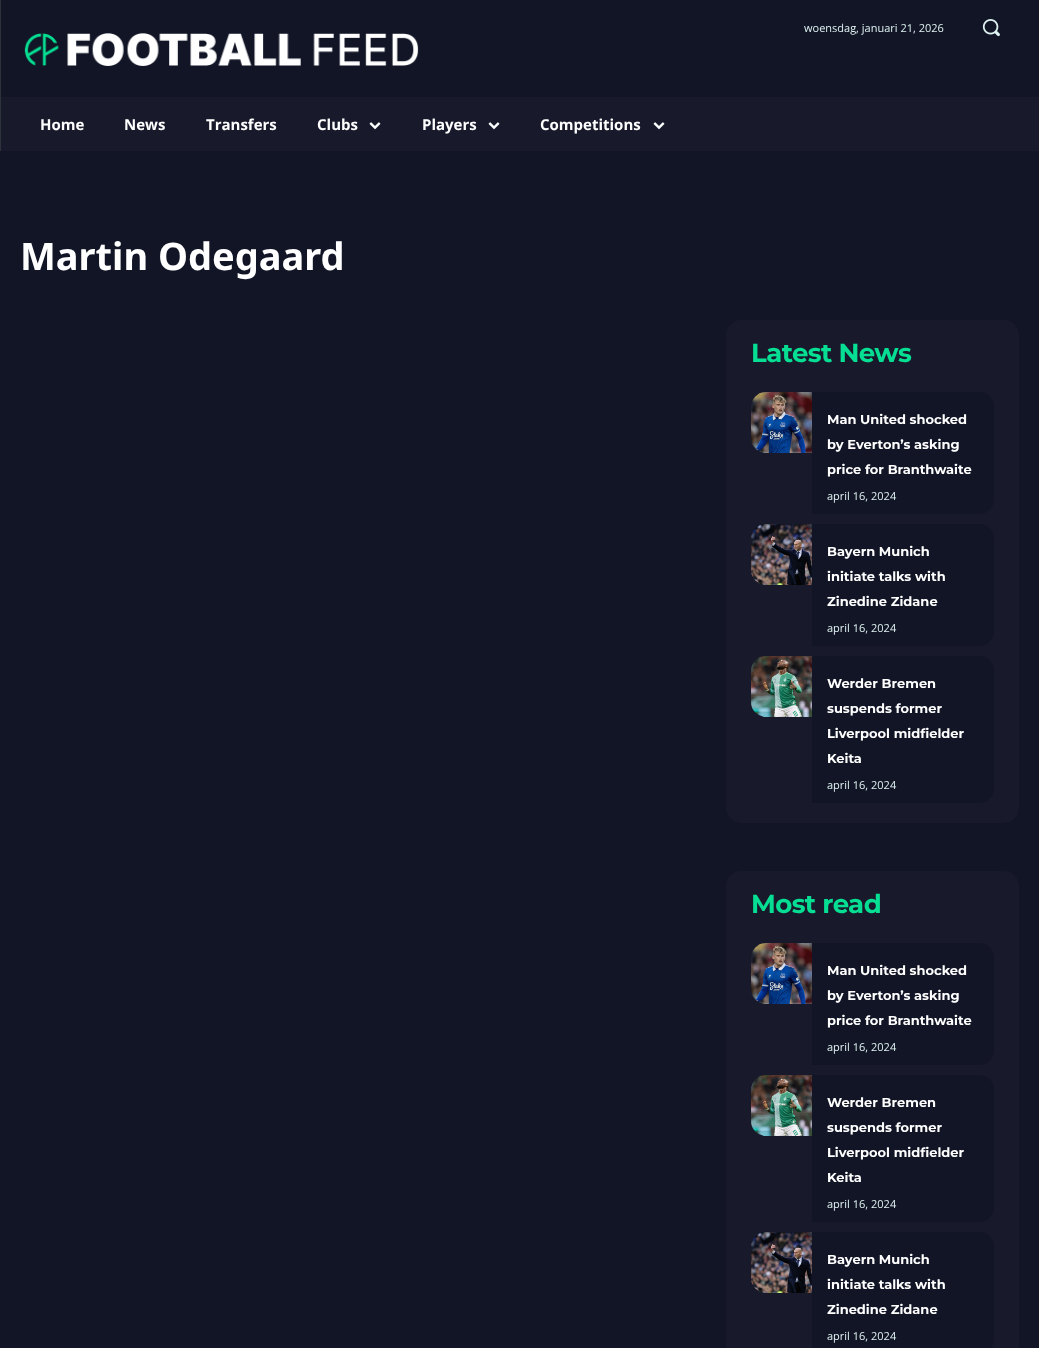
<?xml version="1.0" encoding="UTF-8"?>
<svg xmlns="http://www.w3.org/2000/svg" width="1039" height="1348">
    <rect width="100%" height="100%" fill="#121526"/>
    <rect x="0" y="0" width="1" height="151" fill="#2C343A"/>
    <text x="804" y="32" font-family="Open Sans" font-size="11" fill="#DEF2F1">woensdag, januari 21, 2026</text>
    <image x="982" y="19" width="18" height="18" href="img_01.png"/>
    <image x="24" y="33" width="395" height="33" href="img_02.png"/>
    <rect x="1" y="97" width="1038" height="54" fill="#181A2C"/>
    <text x="40" y="130" font-family="Open Sans" font-size="15" font-weight="700" fill="#FFFFFF">Home</text>
    <text x="124" y="130" font-family="Open Sans" font-size="15" font-weight="700" fill="#FFFFFF">News</text>
    <text x="206" y="130" font-family="Open Sans" font-size="15" font-weight="700" fill="#FFFFFF">Transfers</text>
    <text x="317" y="130" font-family="Open Sans" font-size="15" font-weight="700" fill="#FFFFFF">Clubs</text>
    <image x="369" y="122" width="12" height="8" href="img_03.png"/>
    <text x="422" y="130" font-family="Open Sans" font-size="15" font-weight="700" fill="#FFFFFF">Players</text>
    <image x="488" y="122" width="12" height="8" href="img_03.png"/>
    <text x="540" y="130" font-family="Open Sans" font-size="15" font-weight="700" fill="#FFFFFF">Competitions</text>
    <image x="653" y="122" width="12" height="8" href="img_03.png"/>
    <text x="20" y="270" font-family="Noto Sans" font-size="38" font-weight="700" fill="#FFFFFF">Martin Odegaard</text>
    <rect x="726" y="320" width="293" height="503" rx="15" fill="#181A2C"/>
    <text x="751" y="362" font-family="Montserrat" font-size="26" font-weight="700" letter-spacing="-0.6" fill="#06DF93">Latest News</text>
    <image x="751" y="392" width="61" height="61" href="img_04.png"/>
    <path d="M 812 392 H 979 C 987.5 392 994 398.5 994 407 V 499 C 994 507.5 987.5 514 979 514 H 812 Z" fill="#121526"/>
    <text font-family="Montserrat" font-size="13" font-weight="700" fill="#FFFFFF">
        <tspan x="827" y="424">Man United shocked</tspan>
        <tspan x="827" y="449">by Everton’s asking</tspan>
        <tspan x="827" y="474">price for Branthwaite</tspan>
    </text>
    <text x="827" y="500" font-family="Open Sans" font-size="11" fill="#DEF2F1">april 16, 2024</text>
    <image x="751" y="524" width="61" height="61" href="img_05.png"/>
    <path d="M 812 524 H 979 C 987.5 524 994 530.5 994 539 V 631 C 994 639.5 987.5 646 979 646 H 812 Z" fill="#121526"/>
    <text font-family="Montserrat" font-size="13" font-weight="700" fill="#FFFFFF">
        <tspan x="827" y="556">Bayern Munich</tspan>
        <tspan x="827" y="581">initiate talks with</tspan>
        <tspan x="827" y="606">Zinedine Zidane</tspan>
    </text>
    <text x="827" y="632" font-family="Open Sans" font-size="11" fill="#DEF2F1">april 16, 2024</text>
    <image x="751" y="656" width="61" height="61" href="img_06.png"/>
    <path d="M 812 656 H 979 C 987.5 656 994 662.5 994 671 V 788 C 994 796.5 987.5 803 979 803 H 812 Z" fill="#121526"/>
    <text font-family="Montserrat" font-size="13" font-weight="700" fill="#FFFFFF">
        <tspan x="827" y="688">Werder Bremen</tspan>
        <tspan x="827" y="713">suspends former</tspan>
        <tspan x="827" y="738">Liverpool midfielder</tspan>
        <tspan x="827" y="763">Keita</tspan>
    </text>
    <text x="827" y="789" font-family="Open Sans" font-size="11" fill="#DEF2F1">april 16, 2024</text>
    <rect x="726" y="871" width="293" height="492" rx="15" fill="#181A2C"/>
    <text x="751" y="913" font-family="Montserrat" font-size="26" font-weight="700" letter-spacing="-0.6" fill="#06DF93">Most read</text>
    <image x="751" y="943" width="61" height="61" href="img_04.png"/>
    <path d="M 812 943 H 979 C 987.5 943 994 949.5 994 958 V 1050 C 994 1058.5 987.5 1065 979 1065 H 812 Z" fill="#121526"/>
    <text font-family="Montserrat" font-size="13" font-weight="700" fill="#FFFFFF">
        <tspan x="827" y="975">Man United shocked</tspan>
        <tspan x="827" y="1000">by Everton’s asking</tspan>
        <tspan x="827" y="1025">price for Branthwaite</tspan>
    </text>
    <text x="827" y="1051" font-family="Open Sans" font-size="11" fill="#DEF2F1">april 16, 2024</text>
    <image x="751" y="1075" width="61" height="61" href="img_06.png"/>
    <path d="M 812 1075 H 979 C 987.5 1075 994 1081.5 994 1090 V 1207 C 994 1215.5 987.5 1222 979 1222 H 812 Z" fill="#121526"/>
    <text font-family="Montserrat" font-size="13" font-weight="700" fill="#FFFFFF">
        <tspan x="827" y="1107">Werder Bremen</tspan>
        <tspan x="827" y="1132">suspends former</tspan>
        <tspan x="827" y="1157">Liverpool midfielder</tspan>
        <tspan x="827" y="1182">Keita</tspan>
    </text>
    <text x="827" y="1208" font-family="Open Sans" font-size="11" fill="#DEF2F1">april 16, 2024</text>
    <image x="751" y="1232" width="61" height="61" href="img_07.png"/>
    <path d="M 812 1232 H 979 C 987.5 1232 994 1238.5 994 1247 V 1339 C 994 1347.5 987.5 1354 979 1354 H 812 Z" fill="#121526"/>
    <text font-family="Montserrat" font-size="13" font-weight="700" fill="#FFFFFF">
        <tspan x="827" y="1264">Bayern Munich</tspan>
        <tspan x="827" y="1289">initiate talks with</tspan>
        <tspan x="827" y="1314">Zinedine Zidane</tspan>
    </text>
    <text x="827" y="1340" font-family="Open Sans" font-size="11" fill="#DEF2F1">april 16, 2024</text>
</svg>
